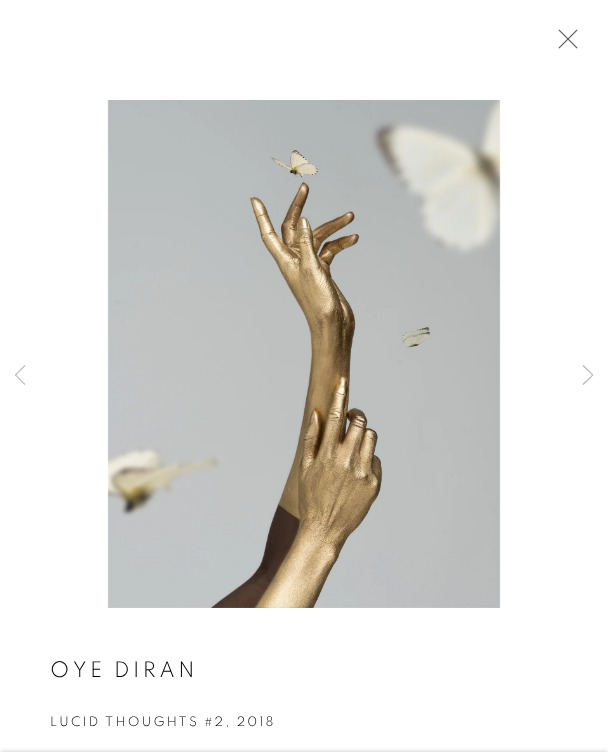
<?xml version="1.0" encoding="UTF-8"?>
<svg xmlns="http://www.w3.org/2000/svg" width="608" height="752">
    <defs>
        <filter id="blur1" x="-50%" y="-200%" width="200%" height="500%"><feGaussianBlur stdDeviation="2.5"/></filter>
    </defs>
    <rect width="100%" height="100%" fill="#FFFFFF"/>
    <image x="558" y="29" width="20" height="20" href="img_01.png"/>
    <image x="15" y="365" width="11" height="20" href="img_02.png"/>
    <path d="M 593.5 375 L 583.5 365 L 582.5 366 L 592 375 L 582.5 384 L 583.5 385 Z" fill="#B9B9B9"/>
    <image x="107" y="100" width="394" height="508" href="img_03.png"/>
    <text x="50" y="677" font-family="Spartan" font-size="22" font-weight="300" letter-spacing="3.5" fill="#010101">OYE DIRAN</text>
    <text x="50" y="726" font-family="Spartan" font-size="13.5" font-weight="300" letter-spacing="2.2" fill="#010101">LUCID THOUGHTS #2, 2018</text>
    <rect x="0" y="752" width="608" height="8" fill="#000000" fill-opacity="0.23" filter="url(#blur1)"/>
</svg>
